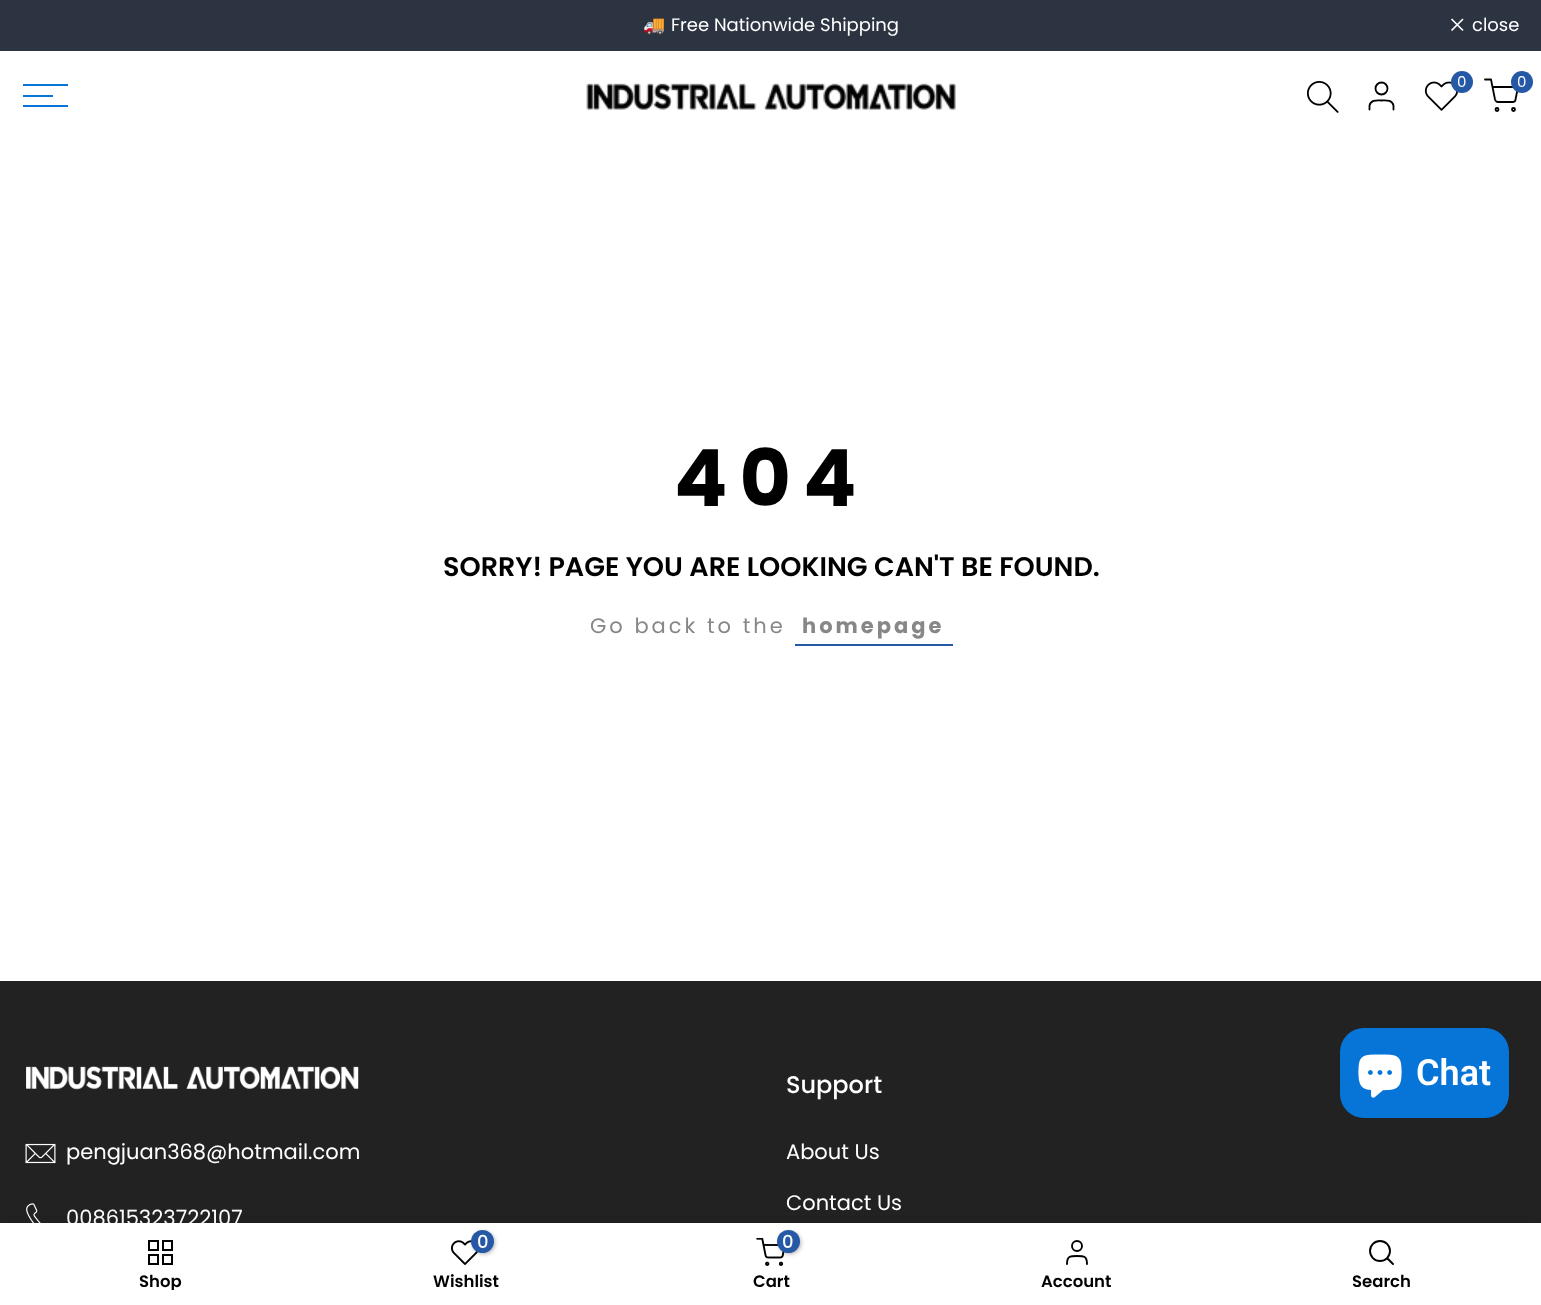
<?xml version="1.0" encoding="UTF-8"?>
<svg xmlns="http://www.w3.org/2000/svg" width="1541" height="1305">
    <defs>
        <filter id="blur1" x="-50%" y="-200%" width="200%" height="500%"><feGaussianBlur stdDeviation="7"/></filter>
        <clipPath id="clip1"><rect x="23" y="1274" width="276" height="16"/></clipPath>
        <filter id="blur2" x="-50%" y="-200%" width="200%" height="500%"><feGaussianBlur stdDeviation="2"/></filter>
    </defs>
    <rect width="100%" height="100%" fill="#FFFFFF"/>
    <rect x="0" y="0" width="1541" height="51" fill="#2C3341"/>
    <text x="643" y="31" font-family="Noto Color Emoji" font-size="18" fill="#FFFFFF">🚚</text>
    <text x="671" y="31" font-family="Poppins" font-size="18" fill="#FFFFFF">Free Nationwide Shipping</text>
    <path d="M 1463 19 L 1451.5 30.5 M 1463 30.5 L 1451.5 19" fill="none" stroke="#FFFFFF" stroke-width="1.7"/>
    <text x="1472" y="31" font-family="Poppins" font-size="18" fill="#FFFFFF">close</text>
    <image x="1307" y="81" width="32" height="32" href="img_01.png"/>
    <path d="M 1393.5 109.5 V 105.5 C 1392 99.5 1386 100.5 1381.5 100.5 C 1377 100.5 1371 99.5 1369.5 105.5 V 109.5" fill="none" stroke="#000000" stroke-width="1.8" stroke-linecap="round" stroke-linejoin="round"/>
    <circle cx="1381.5" cy="88.5" r="6" fill="none" stroke="#000000" stroke-width="1.8"/>
    <image x="1424" y="81" width="34" height="30" href="img_02.png"/>
    <circle cx="1462" cy="82" r="11" fill="#2559A5"/>
    <text x="1457" y="87" font-family="Poppins" font-size="15" fill="#FFFFFF">0</text>
    <circle cx="1497" cy="109.5" r="1.5" fill="none" stroke="#000000" stroke-width="1.8"/>
    <circle cx="1513.5" cy="109.5" r="1.5" fill="none" stroke="#000000" stroke-width="1.8"/>
    <path d="M 1485 79.5 H 1491 L 1495 99.5 C 1495.5 101 1496.5 102 1498 102 H 1512.5 C 1514 102 1515.5 101 1515.5 99.5 L 1518 87 H 1492.5" fill="none" stroke="#000000" stroke-width="1.8" stroke-linecap="round" stroke-linejoin="round"/>
    <circle cx="1522" cy="82" r="11" fill="#2559A5"/>
    <text x="1517" y="87" font-family="Poppins" font-size="15" fill="#FFFFFF">0</text>
    <rect x="23" y="84" width="45" height="2" fill="#0774D7"/>
    <rect x="23" y="95" width="30" height="2" fill="#0774D7"/>
    <rect x="23" y="105" width="45" height="2" fill="#0774D7"/>
    <image x="586" y="83" width="370" height="27" href="img_03.png"/>
    <text x="674" y="506" font-family="Poppins" font-size="79" font-weight="700" letter-spacing="12" fill="#000000">404</text>
    <text x="443" y="576" font-family="Poppins" font-size="27" font-weight="600" fill="#000000">SORRY! PAGE YOU ARE LOOKING CAN'T BE FOUND.</text>
    <text x="590" y="633" font-family="Poppins" font-size="21" letter-spacing="3" fill="#878787">Go back to the</text>
    <text x="802" y="633" font-family="Poppins" font-size="21" font-weight="700" letter-spacing="3" fill="#878787">homepage</text>
    <rect x="795" y="644" width="158" height="2" fill="#2559A5"/>
    <rect x="0" y="981" width="1541" height="242" fill="#222222"/>
    <rect x="1340" y="1028" width="169" height="90" rx="24" fill="#0774D7"/>
    <image x="1358" y="1054" width="44" height="44" href="img_04.png"/>
    <text x="1416" y="1085" font-family="Roboto" font-size="36" font-weight="600" fill="#FFFFFF">Chat</text>
    <image x="26" y="1066" width="333" height="24" href="img_05.png"/>
    <image x="25" y="1143" width="31" height="21" href="img_06.png"/>
    <text x="66" y="1159" font-family="Poppins" font-size="21" fill="#FFFFFF">pengjuan368@hotmail.com</text>
    <image x="26" y="1203" width="15" height="20" href="img_07.png"/>
    <text x="66" y="1225" font-family="Poppins" font-size="21" fill="#FFFFFF">008615323722107</text>
    <text x="786" y="1093" font-family="Poppins" font-size="24" font-weight="500" fill="#FFFFFF">Support</text>
    <text x="786" y="1159" font-family="Poppins" font-size="21" fill="#FFFFFF">About Us</text>
    <text x="786" y="1210" font-family="Poppins" font-size="21" fill="#FFFFFF">Contact Us</text>
    <rect x="0" y="1223" width="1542" height="82" fill="#000000" fill-opacity="0.12" filter="url(#blur1)"/>
    <rect x="0" y="1223" width="1541" height="82" fill="#FFFFFF"/>
    <rect x="149" y="1241" width="9" height="9" fill="none" stroke="#000000" stroke-width="2"/>
    <rect x="163" y="1241" width="9" height="9" fill="none" stroke="#000000" stroke-width="2"/>
    <rect x="163" y="1255" width="9" height="9" fill="none" stroke="#000000" stroke-width="2"/>
    <rect x="149" y="1255" width="9" height="9" fill="none" stroke="#000000" stroke-width="2"/>
    <g clip-path="url(#clip1)">
        <text x="139" y="1287" font-family="Poppins" font-size="16.5" font-weight="600" fill="#000000">Shop</text>
    </g>
    <image x="451" y="1240" width="27" height="25" href="img_08.png"/>
    <rect x="473" y="1232" width="22" height="22" rx="11" fill="#000000" fill-opacity="0.3" filter="url(#blur2)"/>
    <circle cx="482.5" cy="1241.5" r="11.5" fill="#2559A5"/>
    <text x="477" y="1248" font-family="Poppins" font-size="18" font-weight="500" fill="#FFFFFF">0</text>
    <text x="433" y="1287" font-family="Poppins" font-size="16.5" font-weight="600" fill="#000000">Wishlist</text>
    <image x="756" y="1238" width="29" height="28" href="img_09.png"/>
    <rect x="779" y="1232" width="22" height="22" rx="11" fill="#000000" fill-opacity="0.3" filter="url(#blur2)"/>
    <circle cx="788.5" cy="1241.5" r="11.5" fill="#2559A5"/>
    <text x="782" y="1248" font-family="Poppins" font-size="18" font-weight="500" fill="#FFFFFF">0</text>
    <text x="753" y="1287" font-family="Poppins" font-size="16.5" font-weight="600" fill="#000000">Cart</text>
    <path d="M 1087 1264 C 1087 1256 1084 1256 1077 1256 C 1070 1256 1067 1256 1067 1264" fill="none" stroke="#000000" stroke-width="1.9" stroke-linecap="round" stroke-linejoin="round"/>
    <circle cx="1077" cy="1246" r="5" fill="none" stroke="#000000" stroke-width="1.9"/>
    <text x="1041" y="1287" font-family="Poppins" font-size="16.5" font-weight="600" fill="#000000">Account</text>
    <circle cx="1380" cy="1251" r="10" fill="none" stroke="#000000" stroke-width="1.9"/>
    <path d="M 1393 1264 L 1387.5 1258.5" fill="none" stroke="#000000" stroke-width="1.9" stroke-linecap="round" stroke-linejoin="round"/>
    <text x="1352" y="1287" font-family="Poppins" font-size="16.5" font-weight="600" fill="#000000">Search</text>
</svg>
